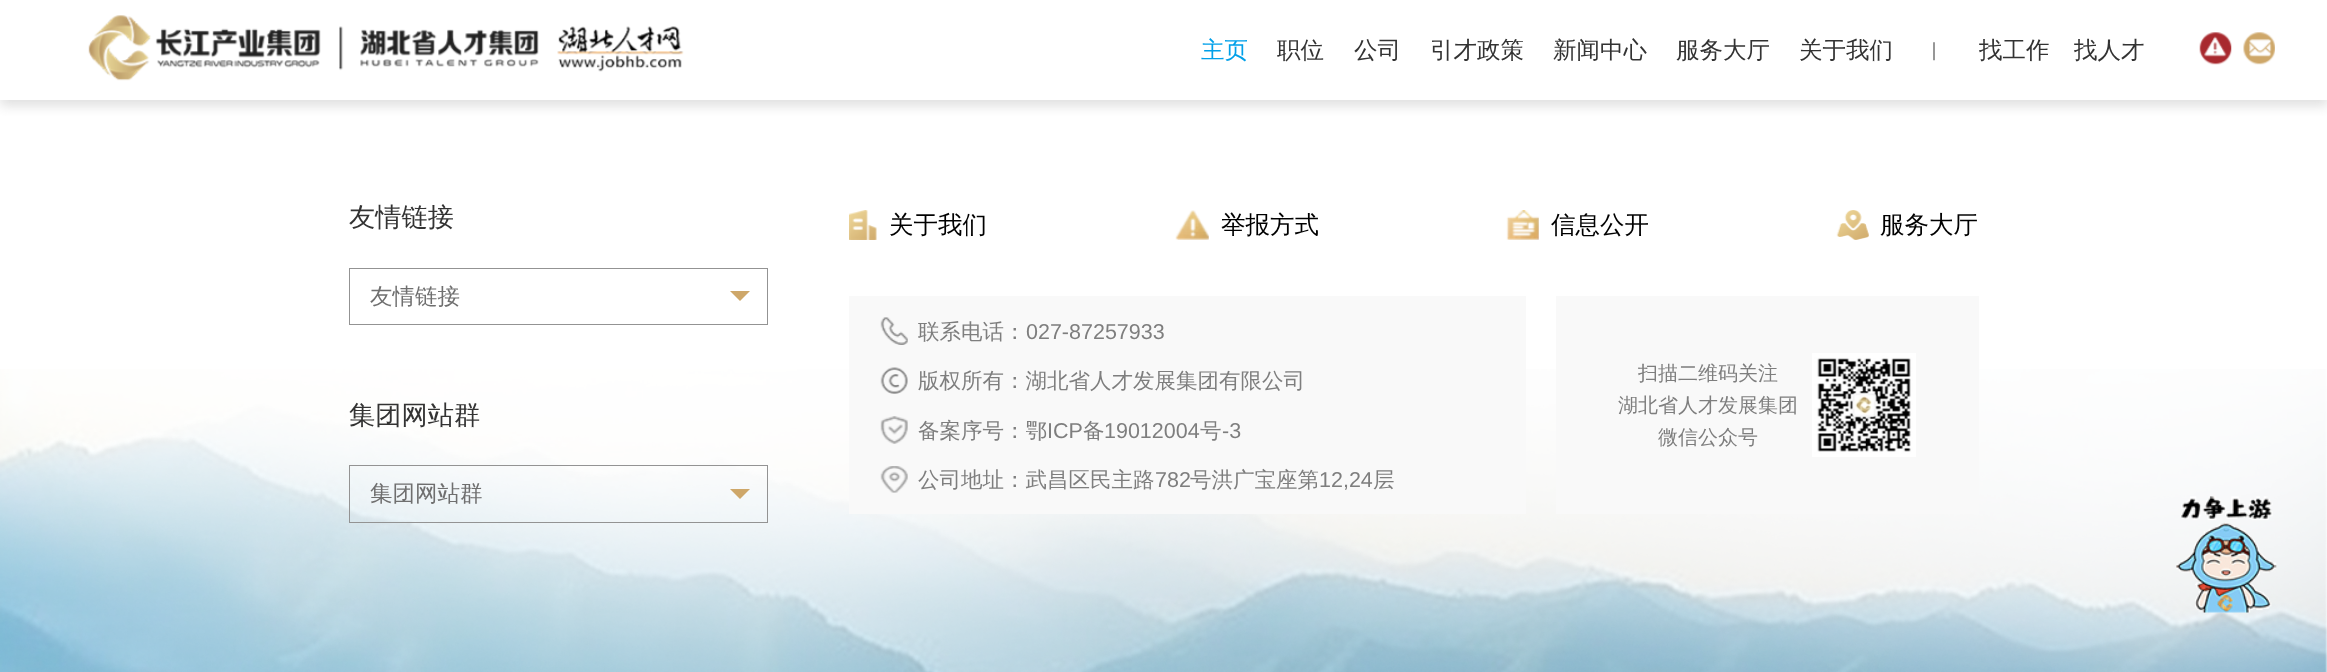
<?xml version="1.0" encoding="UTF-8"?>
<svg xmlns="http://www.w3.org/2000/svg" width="2327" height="672">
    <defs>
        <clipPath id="clip1"><rect x="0" y="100" width="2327" height="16"/></clipPath>
        <filter id="blur1" x="-50%" y="-200%" width="200%" height="500%"><feGaussianBlur stdDeviation="6"/></filter>
    </defs>
    <rect width="100%" height="100%" fill="#FFFFFF"/>
    <g clip-path="url(#clip1)">
        <rect x="0" y="6" width="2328" height="100" fill="#C2C1C1" fill-opacity="0.5" filter="url(#blur1)"/>
    </g>
    <image x="88" y="15" width="596" height="66" href="img_01.png"/>
    <text x="1201" y="58" font-family="WenQuanYi Zen Hei" font-size="23.5" font-weight="500" fill="#00A0E9">主页</text>
    <text x="1277" y="58" font-family="WenQuanYi Zen Hei" font-size="23.5" font-weight="500" fill="#333333">职位</text>
    <text x="1354" y="58" font-family="WenQuanYi Zen Hei" font-size="23.5" font-weight="500" fill="#333333">公司</text>
    <text x="1430" y="58" font-family="WenQuanYi Zen Hei" font-size="23.5" font-weight="500" fill="#333333">引才政策</text>
    <text x="1553" y="58" font-family="WenQuanYi Zen Hei" font-size="23.5" font-weight="500" fill="#333333">新闻中心</text>
    <text x="1676" y="58" font-family="WenQuanYi Zen Hei" font-size="23.5" font-weight="500" fill="#333333">服务大厅</text>
    <text x="1799" y="58" font-family="WenQuanYi Zen Hei" font-size="23.5" font-weight="500" fill="#333333">关于我们</text>
    <text x="1932" y="56" font-family="Liberation Serif" font-size="20" fill="#333333">|</text>
    <text x="1979" y="58" font-family="WenQuanYi Zen Hei" font-size="23.5" font-weight="500" fill="#333333">找工作</text>
    <text x="2074" y="58" font-family="WenQuanYi Zen Hei" font-size="23.5" font-weight="500" fill="#333333">找人才</text>
    <image x="2199" y="32" width="33" height="33" href="img_02.png"/>
    <image x="2243" y="32" width="32" height="33" href="img_03.png"/>
    <image x="0" y="369" width="2327" height="303" href="img_04.png"/>
    <text x="349" y="226" font-family="WenQuanYi Zen Hei" font-size="26.25" font-weight="500" fill="#333333">友情链接</text>
    <rect x="349.5" y="268.5" width="418" height="56" fill="none" stroke="#939393"/>
    <text x="370" y="304" font-family="WenQuanYi Zen Hei" font-size="22.5" font-weight="500" fill="#6F6F6F">友情链接</text>
    <path d="M 730 291 H 750 L 740 301 Z" fill="#CEA769"/>
    <text x="349" y="424" font-family="WenQuanYi Zen Hei" font-size="26.25" font-weight="500" fill="#333333">集团网站群</text>
    <rect x="349.5" y="465.5" width="418" height="57" fill="none" stroke="#939393"/>
    <text x="370" y="501" font-family="WenQuanYi Zen Hei" font-size="22.5" font-weight="500" fill="#6F6F6F">集团网站群</text>
    <path d="M 730 489 H 750 L 740 499 Z" fill="#CEA769"/>
    <image x="849" y="210" width="28" height="30" href="img_05.png"/>
    <text x="889" y="233" font-family="WenQuanYi Zen Hei" font-size="24.5" font-weight="500" fill="#000000">关于我们</text>
    <image x="1175" y="210" width="34" height="30" href="img_06.png"/>
    <text x="1221" y="233" font-family="WenQuanYi Zen Hei" font-size="24.5" font-weight="500" fill="#000000">举报方式</text>
    <image x="1506" y="210" width="33" height="30" href="img_07.png"/>
    <text x="1551" y="233" font-family="WenQuanYi Zen Hei" font-size="24.5" font-weight="500" fill="#000000">信息公开</text>
    <image x="1836" y="210" width="33" height="30" href="img_08.png"/>
    <text x="1880" y="233" font-family="WenQuanYi Zen Hei" font-size="24.5" font-weight="500" fill="#000000">服务大厅</text>
    <rect x="849" y="296" width="677" height="218" fill="#F9F9F9"/>
    <image x="880" y="317" width="28" height="28" href="img_09.png"/>
    <text x="918" y="339" font-family="WenQuanYi Zen Hei" font-size="21.5" font-weight="500" fill="#7E7E7E">联系电话：</text>
    <text x="1026" y="339" font-family="Liberation Sans" font-size="21.5" fill="#7E7E7E">027-87257933</text>
    <image x="880" y="367" width="28" height="27" href="img_10.png"/>
    <text x="918" y="388" font-family="WenQuanYi Zen Hei" font-size="21.5" font-weight="500" fill="#7E7E7E">版权所有：湖北省人才发展集团有限公司</text>
    <image x="880" y="416" width="28" height="28" href="img_11.png"/>
    <text x="918" y="438" font-family="WenQuanYi Zen Hei" font-size="21.5" font-weight="500" fill="#7E7E7E">备案序号：鄂</text>
    <text x="1047" y="438" font-family="Liberation Sans" font-size="21.5" fill="#7E7E7E">ICP</text>
    <text x="1083" y="438" font-family="WenQuanYi Zen Hei" font-size="21.5" font-weight="500" fill="#7E7E7E">备</text>
    <text x="1104" y="438" font-family="Liberation Sans" font-size="21.5" fill="#7E7E7E">19012004</text>
    <text x="1200" y="438" font-family="WenQuanYi Zen Hei" font-size="21.5" font-weight="500" fill="#7E7E7E">号</text>
    <text x="1222" y="438" font-family="Liberation Sans" font-size="21.5" fill="#7E7E7E">-3</text>
    <image x="880" y="466" width="28" height="27" href="img_12.png"/>
    <text x="918" y="487" font-family="WenQuanYi Zen Hei" font-size="21.5" font-weight="500" fill="#7E7E7E">公司地址：武昌区民主路</text>
    <text x="1155" y="487" font-family="Liberation Sans" font-size="21.5" fill="#7E7E7E">782</text>
    <text x="1190" y="487" font-family="WenQuanYi Zen Hei" font-size="21.5" font-weight="500" fill="#7E7E7E">号洪广宝座第</text>
    <text x="1319" y="487" font-family="Liberation Sans" font-size="21.5" fill="#7E7E7E">12,24</text>
    <text x="1373" y="487" font-family="WenQuanYi Zen Hei" font-size="21.5" font-weight="500" fill="#7E7E7E">层</text>
    <rect x="1556" y="296" width="423" height="218" fill="#F9F9F9"/>
    <text x="1638" y="380" font-family="WenQuanYi Zen Hei" font-size="20" font-weight="500" fill="#7E7E7E">扫描二维码关注</text>
    <text x="1618" y="412" font-family="WenQuanYi Zen Hei" font-size="20" font-weight="500" fill="#7E7E7E">湖北省人才发展集团</text>
    <text x="1658" y="444" font-family="WenQuanYi Zen Hei" font-size="20" font-weight="500" fill="#7E7E7E">微信公众号</text>
    <image x="1812" y="353" width="104" height="104" href="img_13.png"/>
    <image x="2176" y="496" width="101" height="117" href="img_14.png"/>
</svg>
